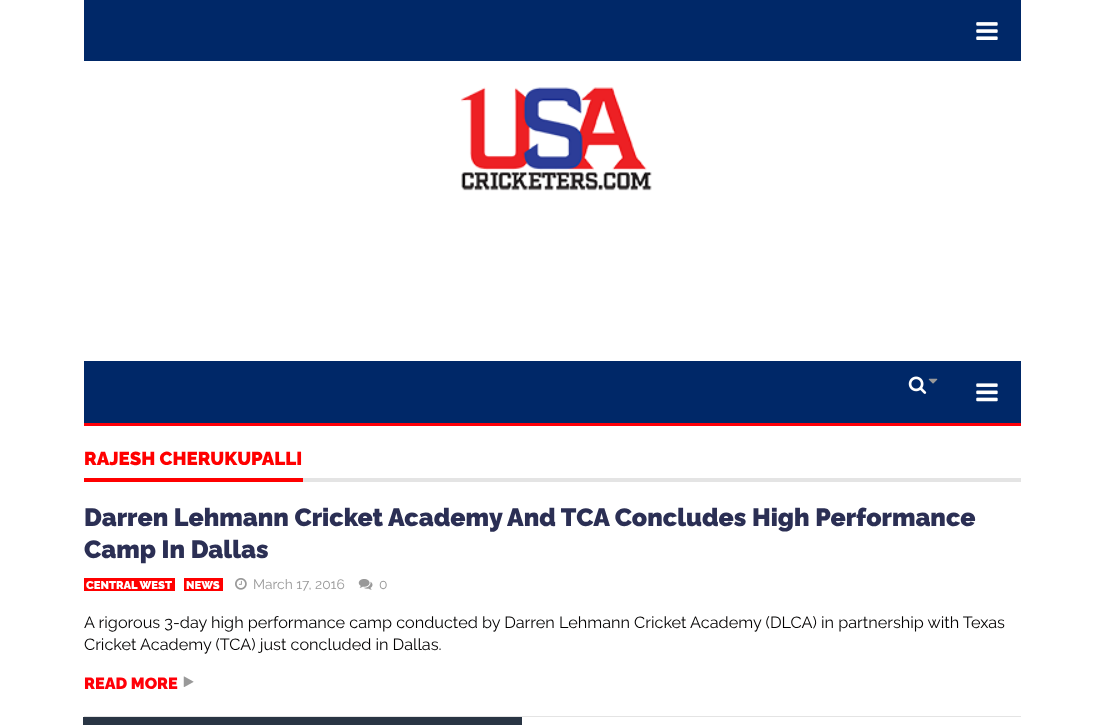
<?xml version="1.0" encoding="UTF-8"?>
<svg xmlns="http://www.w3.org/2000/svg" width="1104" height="725">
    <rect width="100%" height="100%" fill="#FFFFFF"/>
    <rect x="84" y="0" width="937" height="61" fill="#002868"/>
    <image x="976" y="22" width="22" height="18" href="img_01.png"/>
    <image x="460" y="87" width="192" height="104" href="img_02.png"/>
    <rect x="84" y="423" width="937" height="3" fill="#FF0008"/>
    <rect x="84" y="361" width="937" height="62" fill="#002868"/>
    <image x="908" y="376" width="19" height="18" href="img_03.png"/>
    <image x="928" y="378" width="10" height="6" href="img_04.png"/>
    <image x="976" y="383" width="22" height="19" href="img_05.png"/>
    <rect x="303" y="478" width="718" height="4" fill="#E4E4E4"/>
    <rect x="84" y="478" width="219" height="4" fill="#FF0000"/>
    <text x="84" y="465" font-family="Raleway" font-size="18.75" font-weight="900" fill="#FF0000">RAJESH CHERUKUPALLI</text>
    <rect x="84" y="716" width="937" height="1" fill="#E4E4E4"/>
    <text font-family="Raleway" font-size="25" font-weight="900" fill="#2B2F54">
        <tspan x="84" y="526">Darren Lehmann Cricket Academy And TCA Concludes High Performance</tspan>
        <tspan x="84" y="558">Camp In Dallas</tspan>
    </text>
    <rect x="84" y="578" width="91" height="13" fill="#FF0000"/>
    <text x="86" y="589" font-family="Raleway" font-size="11.25" font-weight="900" fill="#FFFFFF">CENTRAL WEST</text>
    <rect x="184" y="578" width="39" height="13" fill="#FF0000"/>
    <text x="186" y="589" font-family="Raleway" font-size="11.25" font-weight="900" fill="#FFFFFF">NEWS</text>
    <image x="235" y="578" width="12" height="12" href="img_06.png"/>
    <text x="253" y="589" font-family="Raleway" font-size="13.75" fill="#999999">March 17, 2016</text>
    <image x="358" y="579" width="15" height="11" href="img_07.png"/>
    <text x="379" y="589" font-family="Raleway" font-size="13.75" fill="#999999">0</text>
    <text font-family="Raleway" font-size="16.25" fill="#020000">
        <tspan x="84" y="628">A rigorous 3-day high performance camp conducted by Darren Lehmann Cricket Academy (DLCA) in partnership with Texas</tspan>
        <tspan x="84" y="650">Cricket Academy (TCA) just concluded in Dallas.</tspan>
    </text>
    <text x="84" y="689" font-family="Raleway" font-size="16.25" font-weight="900" fill="#FF0008">READ MORE</text>
    <image x="183" y="676" width="11" height="11" href="img_08.png"/>
    <rect x="83" y="717" width="439" height="8" fill="#293544"/>
</svg>
